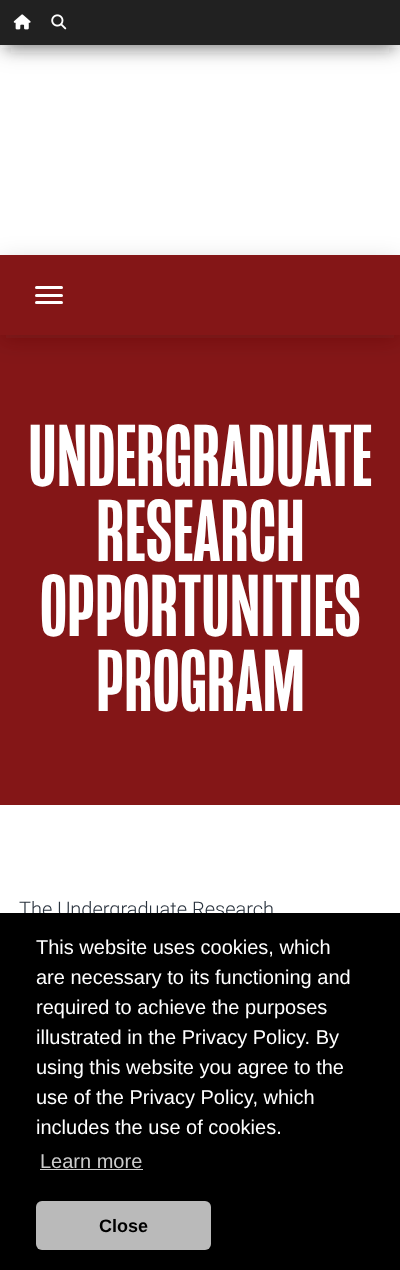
<?xml version="1.0" encoding="UTF-8"?>
<svg xmlns="http://www.w3.org/2000/svg" width="400" height="1270">
    <defs>
        <filter id="blur1" x="-50%" y="-200%" width="200%" height="500%"><feGaussianBlur stdDeviation="7.5"/></filter>
        <filter id="blur2" x="-50%" y="-200%" width="200%" height="500%"><feGaussianBlur stdDeviation="12.5"/></filter>
    </defs>
    <rect width="100%" height="100%" fill="#FFFFFF"/>
    <rect x="6" y="15" width="388" height="33" fill="#212121" fill-opacity="0.46" filter="url(#blur1)"/>
    <rect x="0" y="5" width="400" height="45" fill="#000000" fill-opacity="0.14" filter="url(#blur2)"/>
    <rect x="0" y="0" width="400" height="45" fill="#212121"/>
    <image x="13" y="14" width="18" height="16" href="img_01.png"/>
    <image x="51" y="14" width="16" height="16" href="img_02.png"/>
    <rect x="0" y="335" width="400" height="470" fill="#841617"/>
    <rect x="6" y="270" width="388" height="68" fill="#841617" fill-opacity="0.46" filter="url(#blur1)"/>
    <rect x="0" y="260" width="400" height="80" fill="#000000" fill-opacity="0.14" filter="url(#blur2)"/>
    <rect x="0" y="255" width="400" height="80" fill="#841617"/>
    <rect x="35" y="286" width="28" height="3" rx="1.5" fill="#FFFFFF"/>
    <rect x="35" y="294" width="28" height="3" rx="1.5" fill="#FFFFFF"/>
    <rect x="35" y="301" width="28" height="3" rx="1.5" fill="#FFFFFF"/>
    <text x="28" y="486" font-family="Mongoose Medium" font-size="90" font-weight="500" fill="#FFFFFF">UNDERGRADUATE</text>
    <text x="96" y="561" font-family="Mongoose Medium" font-size="90" font-weight="500" fill="#FFFFFF">RESEARCH</text>
    <text x="40" y="636" font-family="Mongoose Medium" font-size="90" font-weight="500" fill="#FFFFFF">OPPORTUNITIES</text>
    <text x="96" y="711" font-family="Mongoose Medium" font-size="90" font-weight="500" fill="#FFFFFF">PROGRAM</text>
    <text x="19" y="916" font-family="Roboto" font-size="20" font-weight="300" fill="#29323D">The Undergraduate Research</text>
    <rect x="0" y="913" width="400" height="357" fill="#000000"/>
    <text font-family="Liberation Sans" font-size="20" fill="#FFFFFF">
        <tspan x="36" y="954">This website uses cookies, which</tspan>
        <tspan x="36" y="984">are necessary to its functioning and</tspan>
        <tspan x="36" y="1014">required to achieve the purposes</tspan>
        <tspan x="36" y="1044">illustrated in the Privacy Policy. By</tspan>
        <tspan x="36" y="1074">using this website you agree to the</tspan>
        <tspan x="36" y="1104">use of the Privacy Policy, which</tspan>
        <tspan x="36" y="1134">includes the use of cookies.</tspan>
    </text>
    <text x="40" y="1168" font-family="Liberation Sans" font-size="20" fill="#CCCCCC">Learn more</text>
    <rect x="40" y="1169" width="103" height="1" fill="#CCCCCC"/>
    <rect x="36" y="1201" width="175" height="49" rx="6" fill="#BABABA"/>
    <text x="99" y="1232" font-family="Liberation Sans" font-size="18" font-weight="700" fill="#000000">Close</text>
</svg>
